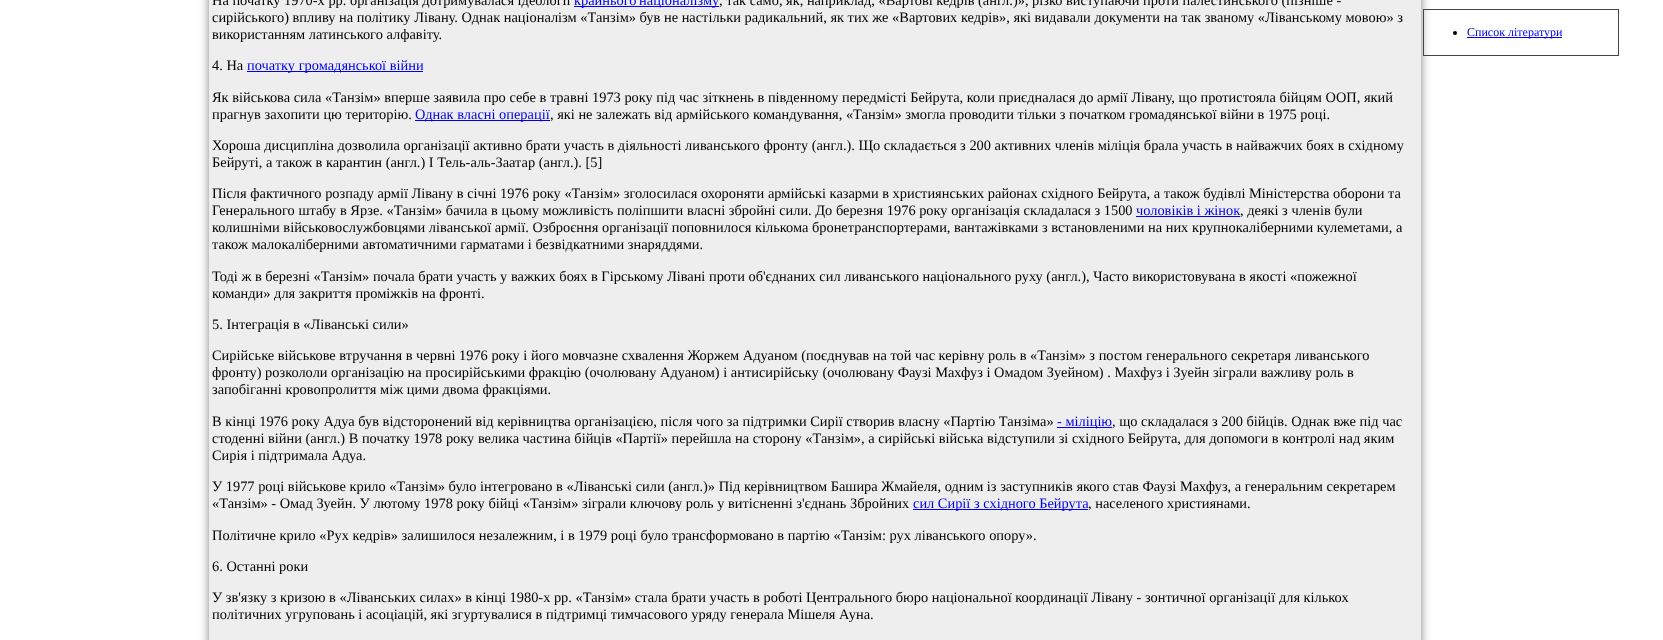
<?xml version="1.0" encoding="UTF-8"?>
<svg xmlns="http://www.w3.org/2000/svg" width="1663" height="640">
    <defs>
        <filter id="blur1" x="-50%" y="-200%" width="200%" height="500%"><feGaussianBlur stdDeviation="5"/></filter>
    </defs>
    <rect width="100%" height="100%" fill="#FFFFFF"/>
    <rect x="209" y="-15" width="1212" height="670" fill="#000000" fill-opacity="0.5" filter="url(#blur1)"/>
    <rect x="209" y="0" width="1212" height="640" fill="#EEEEEE"/>
    <text x="212" y="5" font-family="Liberation Serif" font-size="14.4" fill="#000000">На початку 1970-х рр. організація дотримувалася ідеології</text>
    <rect x="574" y="6" width="145" height="1" fill="#0000EE"/>
    <text x="574" y="5" word-spacing="-1" font-family="Liberation Serif" font-size="14.4" fill="#0000EE">крайнього націоналізму</text>
    <text x="719" y="5" font-family="Liberation Serif" font-size="14.4" fill="#000000">, так само, як, наприклад, «Вартові кедрів (англ.)», різко виступаючи проти палестинського (пізніше -</text>
    <text font-family="Liberation Serif" font-size="14.4" fill="#000000">
        <tspan x="212" y="22">сирійського) впливу на політику Лівану. Однак націоналізм «Танзім» був не настільки радикальний, як тих же «Вартових кедрів», які видавали документи на так званому «Ліванському мовою» з</tspan>
        <tspan x="212" y="39">використанням латинського алфавіту.</tspan>
    </text>
    <text x="212" y="70" font-family="Liberation Serif" font-size="14.4" fill="#000000">4. На</text>
    <rect x="247" y="71" width="176" height="1" fill="#0000EE"/>
    <text x="247" y="70" font-family="Liberation Serif" font-size="14.4" fill="#0000EE">початку громадянської війни</text>
    <text font-family="Liberation Serif" font-size="14.4" fill="#000000">
        <tspan x="212" y="102">Як військова сила «Танзім» вперше заявила про себе в травні 1973 року під час зіткнень в південному передмісті Бейрута, коли приєдналася до армії Лівану, що протистояла бійцям ООП, який</tspan>
        <tspan x="212" y="119">прагнув захопити цю територію.</tspan>
    </text>
    <rect x="415" y="120" width="135" height="1" fill="#0000EE"/>
    <text x="415" y="119" font-family="Liberation Serif" font-size="14.4" fill="#0000EE">Однак власні операції</text>
    <text x="550" y="119" font-family="Liberation Serif" font-size="14.4" fill="#000000">, які не залежать від армійського командування, «Танзім» змогла проводити тільки з початком громадянської війни в 1975 році.</text>
    <text font-family="Liberation Serif" font-size="14.4" fill="#000000">
        <tspan x="212" y="150">Хороша дисципліна дозволила організації активно брати участь в діяльності ливанського фронту (англ.). Що складається з 200 активних членів міліція брала участь в найважчих боях в східному</tspan>
        <tspan x="212" y="167">Бейруті, а також в карантин (англ.) І Тель-аль-Заатар (англ.). [5]</tspan>
    </text>
    <text font-family="Liberation Serif" font-size="14.4" fill="#000000">
        <tspan x="212" y="198">Після фактичного розпаду армії Лівану в січні 1976 року «Танзім» зголосилася охороняти армійські казарми в християнських районах східного Бейрута, а також будівлі Міністерства оборони та</tspan>
        <tspan x="212" y="215">Генерального штабу в Ярзе. «Танзім» бачила в цьому можливість поліпшити власні збройні сили. До березня 1976 року організація складалася з 1500</tspan>
    </text>
    <text x="1136" y="215" font-family="Liberation Serif" font-size="14.4" fill="#0000EE">чоловіків і жінок</text>
    <rect x="1136" y="216" width="104" height="1" fill="#0000EE"/>
    <text x="1240" y="215" font-family="Liberation Serif" font-size="14.4" fill="#000000">, деякі з членів були</text>
    <text font-family="Liberation Serif" font-size="14.4" fill="#000000">
        <tspan x="212" y="232">колишніми військовослужбовцями ліванської армії. Озброєння організації поповнилося кількома бронетранспортерами, вантажівками з встановленими на них крупнокаліберними кулеметами, а</tspan>
        <tspan x="212" y="249">також малокаліберними автоматичними гарматами і безвідкатними знаряддями.</tspan>
    </text>
    <text font-family="Liberation Serif" font-size="14.4" fill="#000000">
        <tspan x="212" y="281">Тоді ж в березні «Танзім» почала брати участь у важких боях в Гірському Лівані проти об'єднаних сил ливанського національного руху (англ.), Часто використовувана в якості «пожежної</tspan>
        <tspan x="212" y="298">команди» для закриття проміжків на фронті.</tspan>
    </text>
    <text x="212" y="329" font-family="Liberation Serif" font-size="14.4" fill="#000000">5. Інтеграція в «Ліванські сили»</text>
    <text font-family="Liberation Serif" font-size="14.4" fill="#000000">
        <tspan x="212" y="360">Сирійське військове втручання в червні 1976 року і його мовчазне схвалення Жоржем Адуаном (поєднував на той час керівну роль в «Танзім» з постом генерального секретаря ливанського</tspan>
        <tspan x="212" y="377">фронту) розкололи організацію на просирійськими фракцію (очолювану Адуаном) і антисирійську (очолювану Фаузі Махфуз і Омадом Зуейном) . Махфуз і Зуейн зіграли важливу роль в</tspan>
        <tspan x="212" y="394">запобіганні кровопролиття між цими двома фракціями.</tspan>
    </text>
    <text x="212" y="426" font-family="Liberation Serif" font-size="14.4" fill="#000000">В кінці 1976 року Адуа був відсторонений від керівництва організацією, після чого за підтримки Сирії створив власну «Партію Танзіма»</text>
    <rect x="1057" y="427" width="55" height="1" fill="#0000EE"/>
    <text x="1057" y="426" font-family="Liberation Serif" font-size="14.4" fill="#0000EE">- міліцію</text>
    <text x="1112" y="426" font-family="Liberation Serif" font-size="14.4" fill="#000000">, що складалася з 200 бійців. Однак вже під час</text>
    <text font-family="Liberation Serif" font-size="14.4" fill="#000000">
        <tspan x="212" y="443">стоденні війни (англ.) В початку 1978 року велика частина бійців «Партії» перейшла на сторону «Танзім», а сирійські війська відступили зі східного Бейрута, для допомоги в контролі над яким</tspan>
        <tspan x="212" y="460">Сирія і підтримала Адуа.</tspan>
    </text>
    <text font-family="Liberation Serif" font-size="14.4" fill="#000000">
        <tspan x="212" y="491">У 1977 році військове крило «Танзім» було інтегровано в «Ліванські сили (англ.)» Під керівництвом Башира Жмайеля, одним із заступників якого став Фаузі Махфуз, а генеральним секретарем</tspan>
        <tspan x="212" y="508">«Танзім» - Омад Зуейн. У лютому 1978 року бійці «Танзім» зіграли ключову роль у витісненні з'єднань Збройних</tspan>
    </text>
    <rect x="913" y="509" width="175" height="1" fill="#0000EE"/>
    <text x="913" y="508" font-family="Liberation Serif" font-size="14.4" fill="#0000EE">сил Сирії з східного Бейрута</text>
    <text x="1088" y="508" font-family="Liberation Serif" font-size="14.4" fill="#000000">, населеного християнами.</text>
    <text x="212" y="540" font-family="Liberation Serif" font-size="14.4" fill="#000000">Політичне крило «Рух кедрів» залишилося незалежним, і в 1979 році було трансформовано в партію «Танзім: рух ліванського опору».</text>
    <text x="212" y="571" font-family="Liberation Serif" font-size="14.4" fill="#000000">6. Останні роки</text>
    <text font-family="Liberation Serif" font-size="14.4" fill="#000000">
        <tspan x="212" y="602">У зв'язку з кризою в «Ліванських силах» в кінці 1980-х рр. «Танзім» стала брати участь в роботі Центрального бюро національної координації Лівану - зонтичної організації для кількох</tspan>
        <tspan x="212" y="619">політичних угруповань і асоціацій, які згуртувалися в підтримці тимчасового уряду генерала Мішеля Ауна.</tspan>
    </text>
    <rect x="1423.5" y="9.5" width="195" height="46" fill="none" stroke="#444444"/>
    <circle cx="1455" cy="33" r="2" fill="#000000"/>
    <rect x="1467" y="37" width="95" height="1" fill="#0000EE"/>
    <text x="1467" y="36" font-family="Liberation Serif" font-size="12" fill="#0000EE">Список літератури</text>
</svg>
